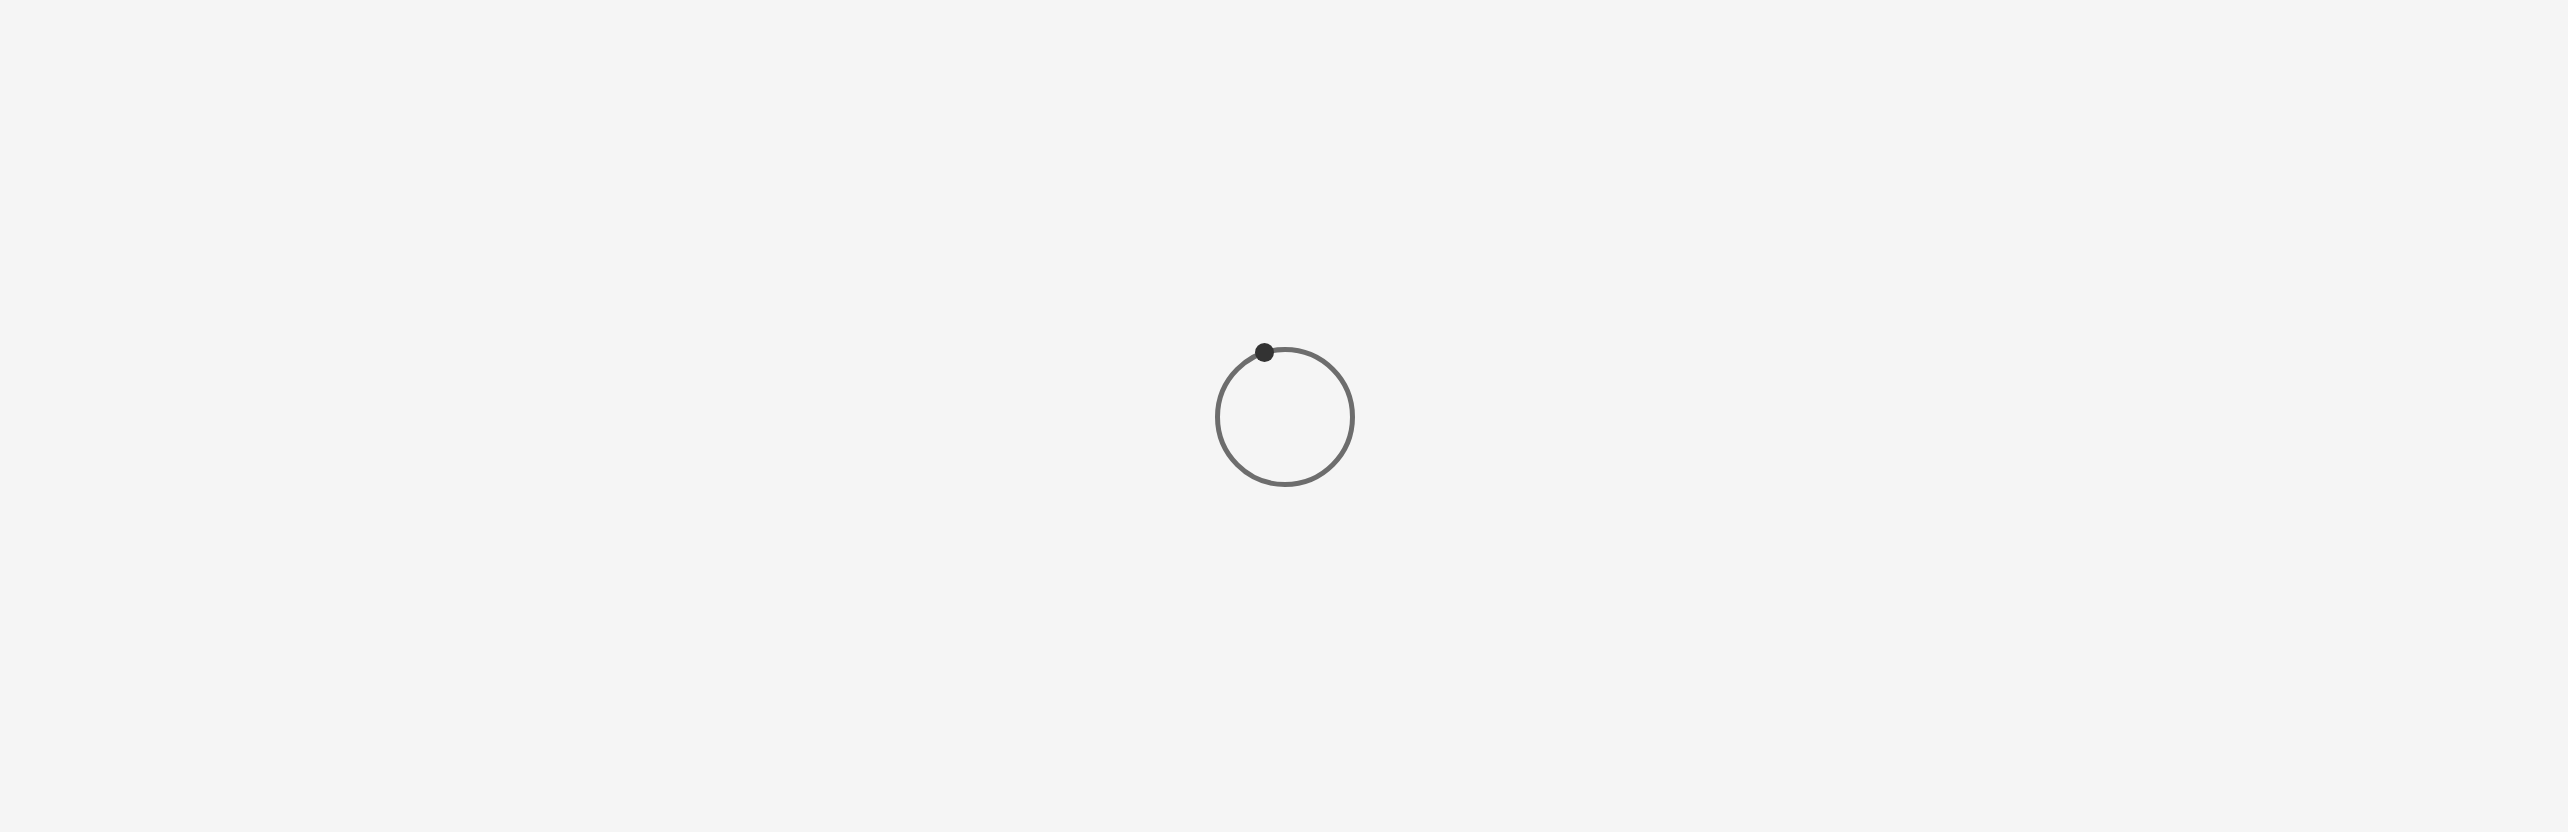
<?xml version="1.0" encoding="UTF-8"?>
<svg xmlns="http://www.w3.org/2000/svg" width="2568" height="832">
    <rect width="100%" height="100%" fill="#F5F5F5"/>
    <circle cx="1285" cy="417" r="67.5" fill="none" stroke="#6D6D6D" stroke-width="5"/>
    <circle cx="1264.5" cy="352.5" r="9.5" fill="#333333"/>
</svg>
